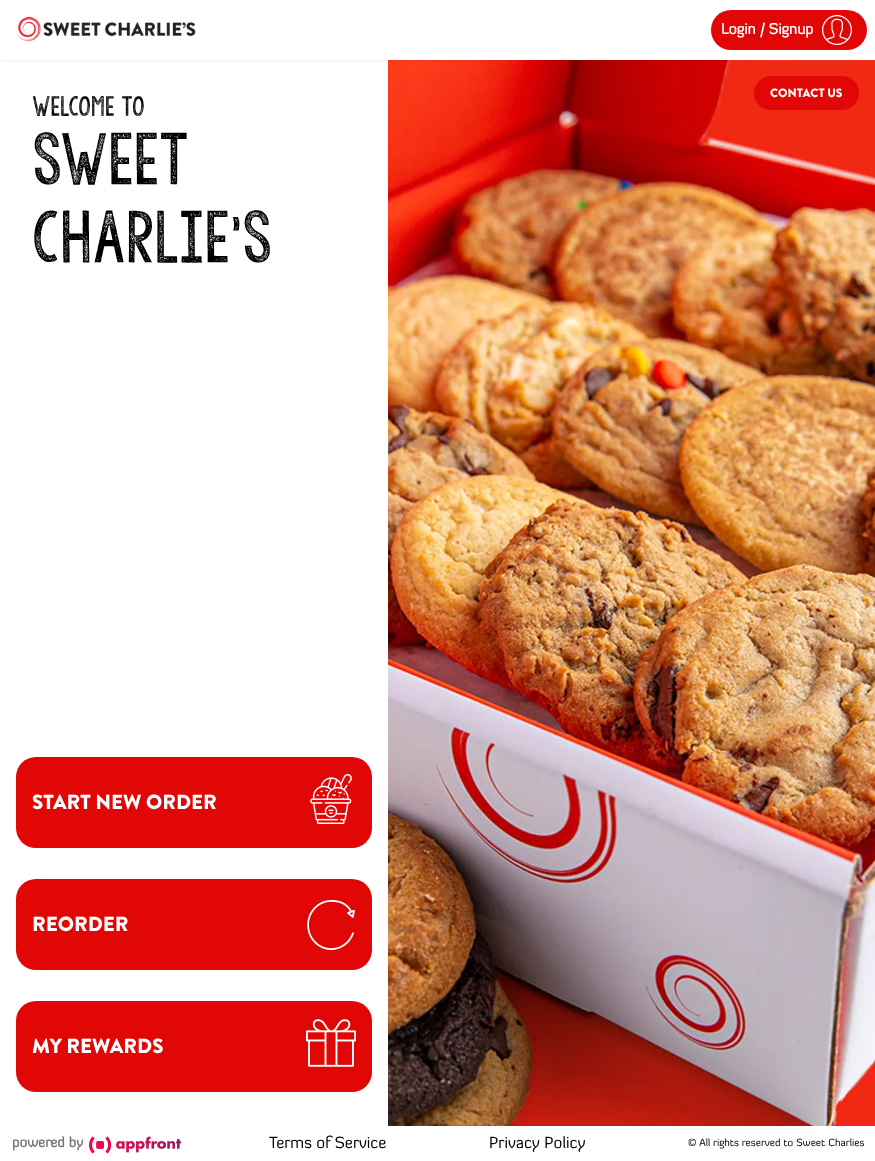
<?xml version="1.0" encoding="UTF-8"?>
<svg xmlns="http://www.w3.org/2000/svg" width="875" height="1161">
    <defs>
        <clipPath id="clip1"><rect x="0" y="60" width="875" height="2"/></clipPath>
        <filter id="blur1" x="-50%" y="-200%" width="200%" height="500%"><feGaussianBlur stdDeviation="2"/></filter>
    </defs>
    <rect width="100%" height="100%" fill="#FFFFFF"/>
    <image x="388" y="60" width="487" height="1066" href="img_03.png"/>
    <g clip-path="url(#clip1)">
        <rect x="0" y="0" width="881" height="60" fill="#000000" fill-opacity="0.1" filter="url(#blur1)"/>
    </g>
    <image x="16" y="16" width="180" height="26" href="img_01.png"/>
    <rect x="711" y="10" width="156" height="40" rx="20" fill="#E10707"/>
    <text x="721" y="34" font-family="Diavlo" font-size="15" font-weight="700" fill="#FFFFFF">Login / Signup</text>
    <image x="822" y="15" width="30" height="30" href="img_02.png"/>
    <rect x="754" y="76" width="105" height="34" rx="17" fill="#E10707"/>
    <text x="770" y="97" font-family="Brandon Grotesque" font-size="12" font-weight="900" fill="#FFFFFF">CONTACT US</text>
    <text x="32" y="116" font-family="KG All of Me" font-size="22" fill="#000000">WELCOME TO</text>
    <text font-family="KG All of Me" font-size="58" fill="#000000">
        <tspan x="32" y="185">SWEET</tspan>
        <tspan x="32" y="263">CHARLIE'S</tspan>
    </text>
    <rect x="16" y="757" width="356" height="91" rx="20" fill="#E10707"/>
    <text x="32" y="809" font-family="Brandon Grotesque" font-size="20.5" font-weight="900" fill="#FFFFFF">START NEW ORDER</text>
    <image x="310" y="774" width="42" height="50" href="img_04.png"/>
    <rect x="16" y="879" width="356" height="91" rx="20" fill="#E10707"/>
    <text x="32" y="931" font-family="Brandon Grotesque" font-size="20.5" font-weight="900" fill="#FFFFFF">REORDER</text>
    <image x="307" y="900" width="48" height="50" href="img_05.png"/>
    <rect x="16" y="1001" width="356" height="91" rx="20" fill="#E10707"/>
    <text x="32" y="1053" font-family="Brandon Grotesque" font-size="20.5" font-weight="900" fill="#FFFFFF">MY REWARDS</text>
    <image x="306" y="1019" width="50" height="48" href="img_06.png"/>
    <text x="12" y="1147" font-family="Diavlo" font-size="14" font-weight="700" fill="#777777">powered by</text>
    <image x="89" y="1136" width="92" height="18" href="img_07.png"/>
    <text x="269" y="1148" font-family="Diavlo" font-size="16" fill="#000000">Terms of Service</text>
    <text x="489" y="1148" font-family="Diavlo" font-size="16" fill="#000000">Privacy Policy</text>
    <text x="688" y="1146" font-family="Diavlo" font-size="10.25" fill="#000000">© All rights reserved to Sweet Charlies</text>
</svg>
